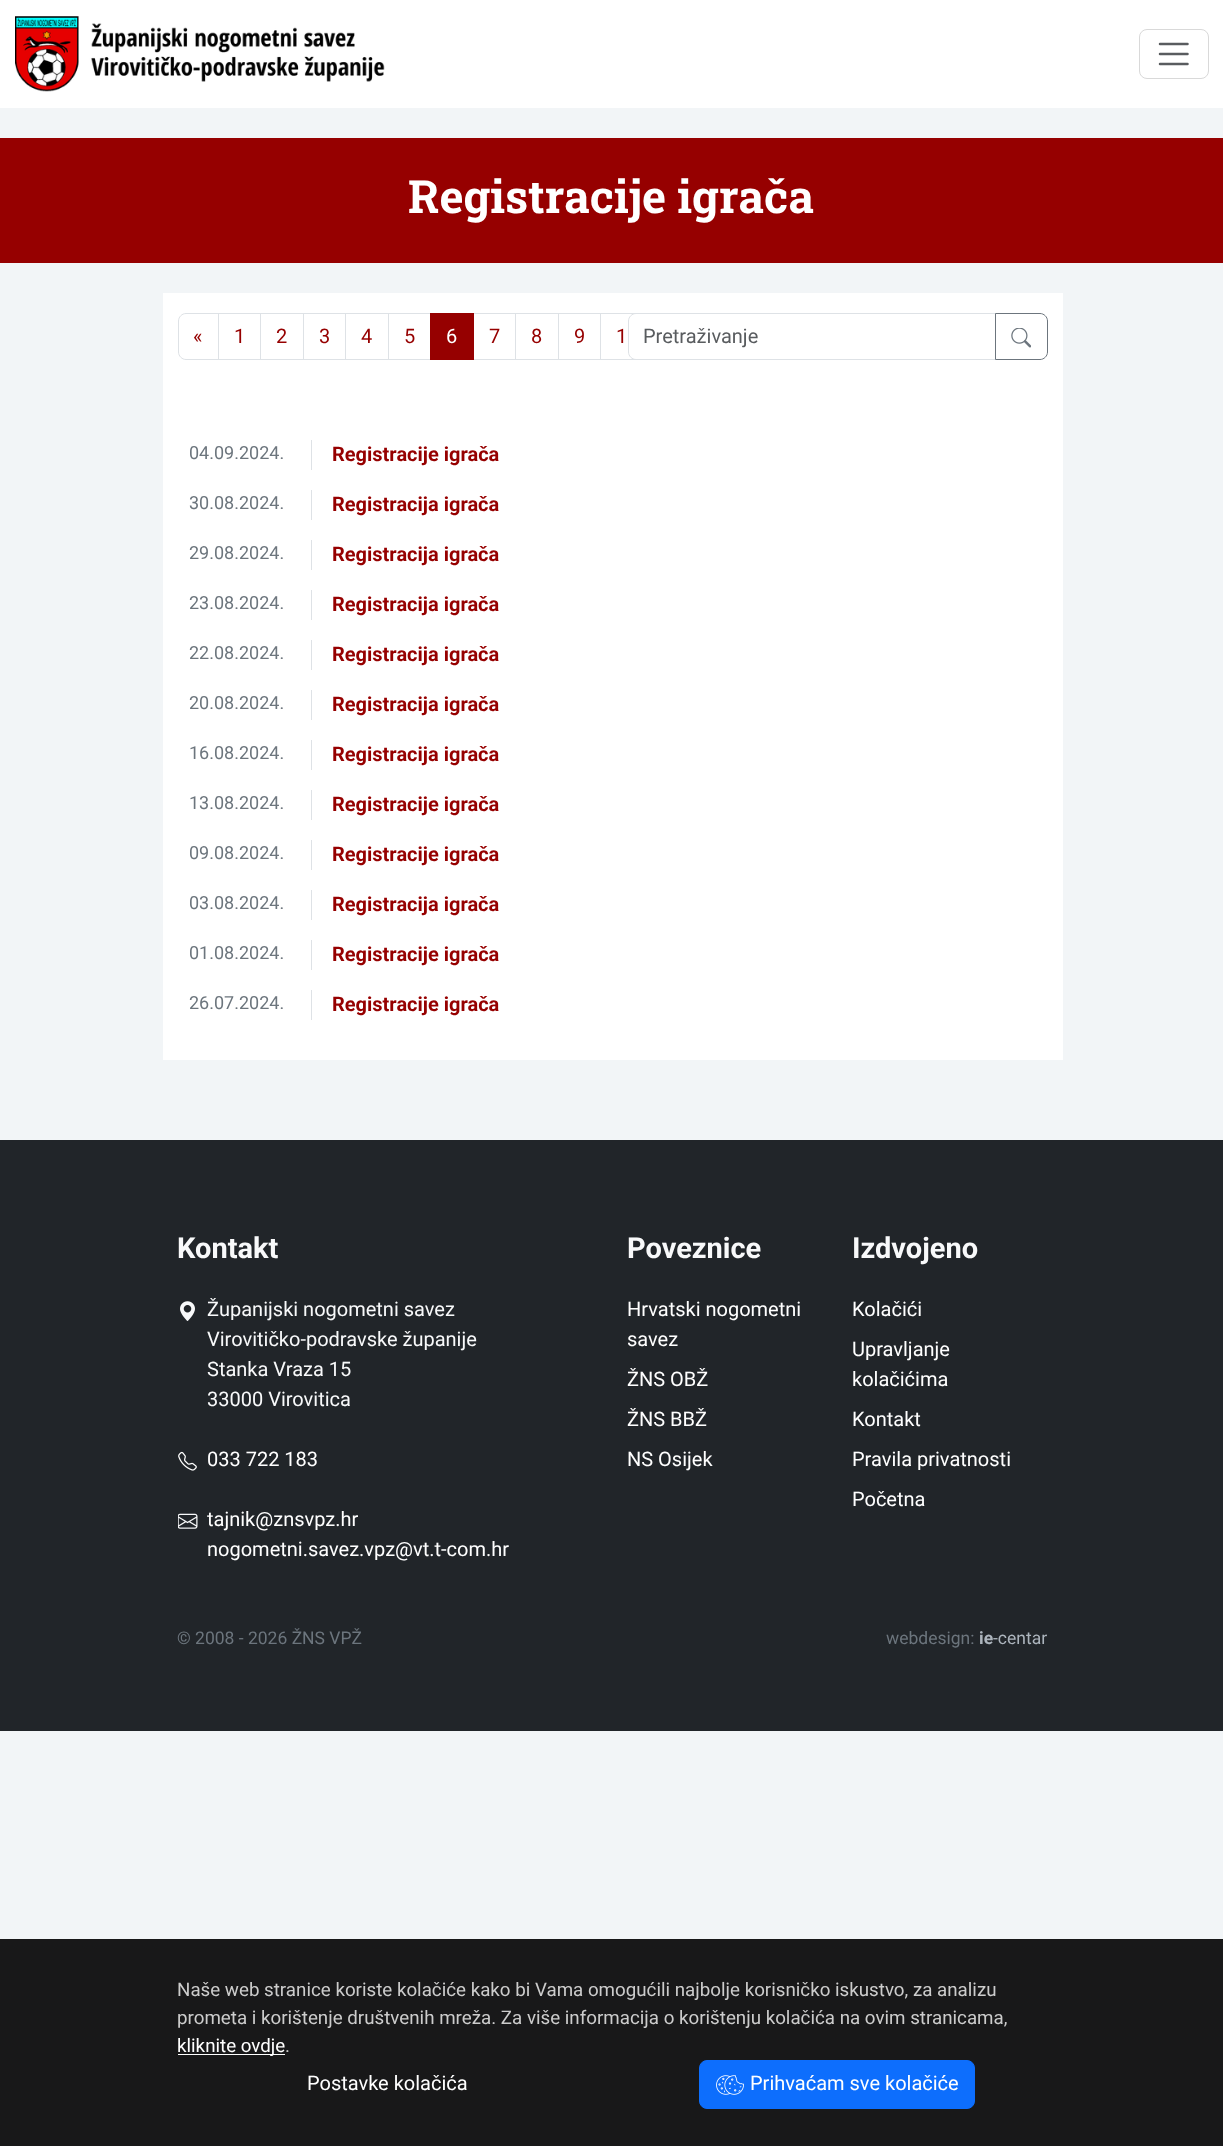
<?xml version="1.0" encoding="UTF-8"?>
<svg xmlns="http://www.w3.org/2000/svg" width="1223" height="2146">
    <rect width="100%" height="100%" fill="#F2F5F7"/>
    <rect x="0" y="0" width="1223" height="108" fill="#FFFFFF"/>
    <image x="15" y="16" width="370" height="76" href="img_01.png"/>
    <rect x="1139.5" y="29.5" width="69" height="49" rx="7.5" fill="none" stroke="#D9D9D9"/>
    <path d="M 1160 44 H 1187.5 M 1160 54 H 1187.5 M 1160 64 H 1187.5" fill="none" stroke="#595C5F" stroke-width="2.5" stroke-linecap="round"/>
    <rect x="0" y="138" width="1223" height="125" fill="#960000"/>
    <text x="408" y="213" font-family="Roboto Slab" font-size="45.75" font-weight="700" fill="#FFFFFF">Registracije igrača</text>
    <rect x="163" y="293" width="900" height="767" fill="#FFFFFF"/>
    <path d="M 186 313.5 H 218.5 V 359.5 H 186 C 182 359.5 178.5 356 178.5 352 V 321 C 178.5 317 182 313.5 186 313.5 Z" fill="none" stroke="#DEE2E6"/>
    <text x="193" y="343" font-family="Roboto" font-size="20" fill="#960000">«</text>
    <rect x="218.5" y="313.5" width="42" height="46" fill="none" stroke="#DEE2E6"/>
    <text x="234" y="343" font-family="Roboto" font-size="20" fill="#960000">1</text>
    <rect x="260.5" y="313.5" width="43" height="46" fill="none" stroke="#DEE2E6"/>
    <text x="276" y="343" font-family="Roboto" font-size="20" fill="#960000">2</text>
    <rect x="303.5" y="313.5" width="42" height="46" fill="none" stroke="#DEE2E6"/>
    <text x="319" y="343" font-family="Roboto" font-size="20" fill="#960000">3</text>
    <rect x="345.5" y="313.5" width="43" height="46" fill="none" stroke="#DEE2E6"/>
    <text x="361" y="343" font-family="Roboto" font-size="20" fill="#960000">4</text>
    <rect x="388.5" y="313.5" width="42" height="46" fill="none" stroke="#DEE2E6"/>
    <text x="404" y="343" font-family="Roboto" font-size="20" fill="#960000">5</text>
    <rect x="473.5" y="313.5" width="42" height="46" fill="none" stroke="#DEE2E6"/>
    <rect x="430" y="313" width="44" height="47" fill="#960000"/>
    <text x="446" y="343" font-family="Roboto" font-size="20" fill="#FFFFFF">6</text>
    <text x="489" y="343" font-family="Roboto" font-size="20" fill="#960000">7</text>
    <rect x="515.5" y="313.5" width="43" height="46" fill="none" stroke="#DEE2E6"/>
    <text x="531" y="343" font-family="Roboto" font-size="20" fill="#960000">8</text>
    <rect x="558.5" y="313.5" width="42" height="46" fill="none" stroke="#DEE2E6"/>
    <text x="574" y="343" font-family="Roboto" font-size="20" fill="#960000">9</text>
    <rect x="600.5" y="313.5" width="54" height="46" fill="none" stroke="#DEE2E6"/>
    <text x="616" y="343" font-family="Roboto" font-size="20" fill="#960000">1</text>
    <path d="M 635 314 H 995 V 359 H 635 C 631.5 359 629 356.5 629 353 V 320 C 629 316.5 631.5 314 635 314 Z" fill="#FFFFFF"/>
    <path d="M 636 313.5 H 995.5 V 359.5 H 636 C 632 359.5 628.5 356 628.5 352 V 321 C 628.5 317 632 313.5 636 313.5 Z" fill="none" stroke="#DEE2E6"/>
    <text x="643" y="343" font-family="Roboto" font-size="20" fill="#595C5F">Pretraživanje</text>
    <path d="M 995.5 313.5 H 1040 C 1044 313.5 1047.5 317 1047.5 321 V 352 C 1047.5 356 1044 359.5 1040 359.5 H 995.5 Z" fill="none" stroke="#6C757D"/>
    <image x="1011" y="328" width="20" height="20" href="img_02.png"/>
    <rect x="311" y="440" width="1" height="30" fill="#DEE2E6"/>
    <text x="189" y="459" font-family="Roboto" font-size="18" fill="#6C757D">04.09.2024.</text>
    <text x="332" y="461" font-family="Roboto" font-size="20" font-weight="700" fill="#960000">Registracije igrača</text>
    <rect x="311" y="490" width="1" height="30" fill="#DEE2E6"/>
    <text x="189" y="509" font-family="Roboto" font-size="18" fill="#6C757D">30.08.2024.</text>
    <text x="332" y="511" font-family="Roboto" font-size="20" font-weight="700" fill="#960000">Registracija igrača</text>
    <rect x="311" y="540" width="1" height="30" fill="#DEE2E6"/>
    <text x="189" y="559" font-family="Roboto" font-size="18" fill="#6C757D">29.08.2024.</text>
    <text x="332" y="561" font-family="Roboto" font-size="20" font-weight="700" fill="#960000">Registracija igrača</text>
    <rect x="311" y="590" width="1" height="30" fill="#DEE2E6"/>
    <text x="189" y="609" font-family="Roboto" font-size="18" fill="#6C757D">23.08.2024.</text>
    <text x="332" y="611" font-family="Roboto" font-size="20" font-weight="700" fill="#960000">Registracija igrača</text>
    <rect x="311" y="640" width="1" height="30" fill="#DEE2E6"/>
    <text x="189" y="659" font-family="Roboto" font-size="18" fill="#6C757D">22.08.2024.</text>
    <text x="332" y="661" font-family="Roboto" font-size="20" font-weight="700" fill="#960000">Registracija igrača</text>
    <rect x="311" y="690" width="1" height="30" fill="#DEE2E6"/>
    <text x="189" y="709" font-family="Roboto" font-size="18" fill="#6C757D">20.08.2024.</text>
    <text x="332" y="711" font-family="Roboto" font-size="20" font-weight="700" fill="#960000">Registracija igrača</text>
    <rect x="311" y="740" width="1" height="30" fill="#DEE2E6"/>
    <text x="189" y="759" font-family="Roboto" font-size="18" fill="#6C757D">16.08.2024.</text>
    <text x="332" y="761" font-family="Roboto" font-size="20" font-weight="700" fill="#960000">Registracija igrača</text>
    <rect x="311" y="790" width="1" height="30" fill="#DEE2E6"/>
    <text x="189" y="809" font-family="Roboto" font-size="18" fill="#6C757D">13.08.2024.</text>
    <text x="332" y="811" font-family="Roboto" font-size="20" font-weight="700" fill="#960000">Registracije igrača</text>
    <rect x="311" y="840" width="1" height="30" fill="#DEE2E6"/>
    <text x="189" y="859" font-family="Roboto" font-size="18" fill="#6C757D">09.08.2024.</text>
    <text x="332" y="861" font-family="Roboto" font-size="20" font-weight="700" fill="#960000">Registracije igrača</text>
    <rect x="311" y="890" width="1" height="30" fill="#DEE2E6"/>
    <text x="189" y="909" font-family="Roboto" font-size="18" fill="#6C757D">03.08.2024.</text>
    <text x="332" y="911" font-family="Roboto" font-size="20" font-weight="700" fill="#960000">Registracija igrača</text>
    <rect x="311" y="940" width="1" height="30" fill="#DEE2E6"/>
    <text x="189" y="959" font-family="Roboto" font-size="18" fill="#6C757D">01.08.2024.</text>
    <text x="332" y="961" font-family="Roboto" font-size="20" font-weight="700" fill="#960000">Registracije igrača</text>
    <rect x="311" y="990" width="1" height="30" fill="#DEE2E6"/>
    <text x="189" y="1009" font-family="Roboto" font-size="18" fill="#6C757D">26.07.2024.</text>
    <text x="332" y="1011" font-family="Roboto" font-size="20" font-weight="700" fill="#960000">Registracije igrača</text>
    <rect x="0" y="1140" width="1223" height="591" fill="#212529"/>
    <text x="177" y="1258" font-family="Roboto" font-size="29" font-weight="700" fill="#F8F9FA">Kontakt</text>
    <image x="180" y="1301" width="15" height="20" href="img_03.png"/>
    <text font-family="Roboto" font-size="20" fill="#F8F9FA">
        <tspan x="207" y="1316">Županijski nogometni savez</tspan>
        <tspan x="207" y="1346">Virovitičko-podravske županije</tspan>
        <tspan x="207" y="1376">Stanka Vraza 15</tspan>
        <tspan x="207" y="1406">33000 Virovitica</tspan>
    </text>
    <image x="178" y="1451" width="19" height="20" href="img_04.png"/>
    <text x="207" y="1466" font-family="Roboto" font-size="20" fill="#FFFFFF">033 722 183</text>
    <image x="178" y="1513" width="20" height="16" href="img_05.png"/>
    <text font-family="Roboto" font-size="20" fill="#FFFFFF">
        <tspan x="207" y="1526">tajnik@znsvpz.hr</tspan>
        <tspan x="207" y="1556">nogometni.savez.vpz@vt.t-com.hr</tspan>
    </text>
    <text x="627" y="1258" font-family="Roboto" font-size="29" font-weight="700" fill="#F8F9FA">Poveznice</text>
    <text font-family="Roboto" font-size="20" fill="#FFFFFF">
        <tspan x="627" y="1316">Hrvatski nogometni</tspan>
        <tspan x="627" y="1346">savez</tspan>
    </text>
    <text x="627" y="1386" font-family="Roboto" font-size="20" fill="#FFFFFF">ŽNS OBŽ</text>
    <text x="627" y="1426" font-family="Roboto" font-size="20" fill="#FFFFFF">ŽNS BBŽ</text>
    <text x="627" y="1466" font-family="Roboto" font-size="20" fill="#FFFFFF">NS Osijek</text>
    <text x="852" y="1258" font-family="Roboto" font-size="29" font-weight="700" fill="#F8F9FA">Izdvojeno</text>
    <text x="852" y="1316" font-family="Roboto" font-size="20" fill="#FFFFFF">Kolačići</text>
    <text font-family="Roboto" font-size="20" fill="#FFFFFF">
        <tspan x="852" y="1356">Upravljanje</tspan>
        <tspan x="852" y="1386">kolačićima</tspan>
    </text>
    <text x="852" y="1426" font-family="Roboto" font-size="20" fill="#FFFFFF">Kontakt</text>
    <text x="852" y="1466" font-family="Roboto" font-size="20" fill="#FFFFFF">Pravila privatnosti</text>
    <text x="852" y="1506" font-family="Roboto" font-size="20" fill="#FFFFFF">Početna</text>
    <text x="177" y="1644" font-family="Roboto" font-size="17.5" fill="#6C757D">© 2008 - 2026 ŽNS VPŽ</text>
    <text x="886" y="1644" font-family="Roboto" font-size="17.5" fill="#6C757D">webdesign:</text>
    <text x="979" y="1644" font-family="Roboto" font-size="17.5" font-weight="700" fill="#ADB5BD">ie</text>
    <text x="993" y="1644" font-family="Roboto" font-size="17.5" fill="#ADB5BD">-centar</text>
    <rect x="0" y="1939" width="1223" height="207" fill="#181819"/>
    <text font-family="Roboto" font-size="18.75" fill="#CCCCCC">
        <tspan x="177" y="1996">Naše web stranice koriste kolačiće kako bi Vama omogućili najbolje korisničko iskustvo, za analizu</tspan>
        <tspan x="177" y="2024">prometa i korištenje društvenih mreža. Za više informacija o korištenju kolačića na ovim stranicama,</tspan>
    </text>
    <rect x="178" y="2054" width="107" height="1" fill="#FFFFFF"/>
    <text x="177" y="2052" font-family="Roboto" font-size="18.75" fill="#FFFFFF">kliknite ovdje</text>
    <text x="285" y="2052" font-family="Roboto" font-size="18.75" fill="#CCCCCC">.</text>
    <text x="307" y="2090" font-family="Roboto" font-size="20" fill="#FFFFFF">Postavke kolačića</text>
    <rect x="699.5" y="2060.5" width="275" height="48" rx="7.5" fill="#0D6EFD" stroke="#0D6EFD"/>
    <image x="716" y="2075" width="28" height="20" href="img_06.png"/>
    <text x="750" y="2090" font-family="Roboto" font-size="20" fill="#FFFFFF">Prihvaćam sve kolačiće</text>
</svg>
